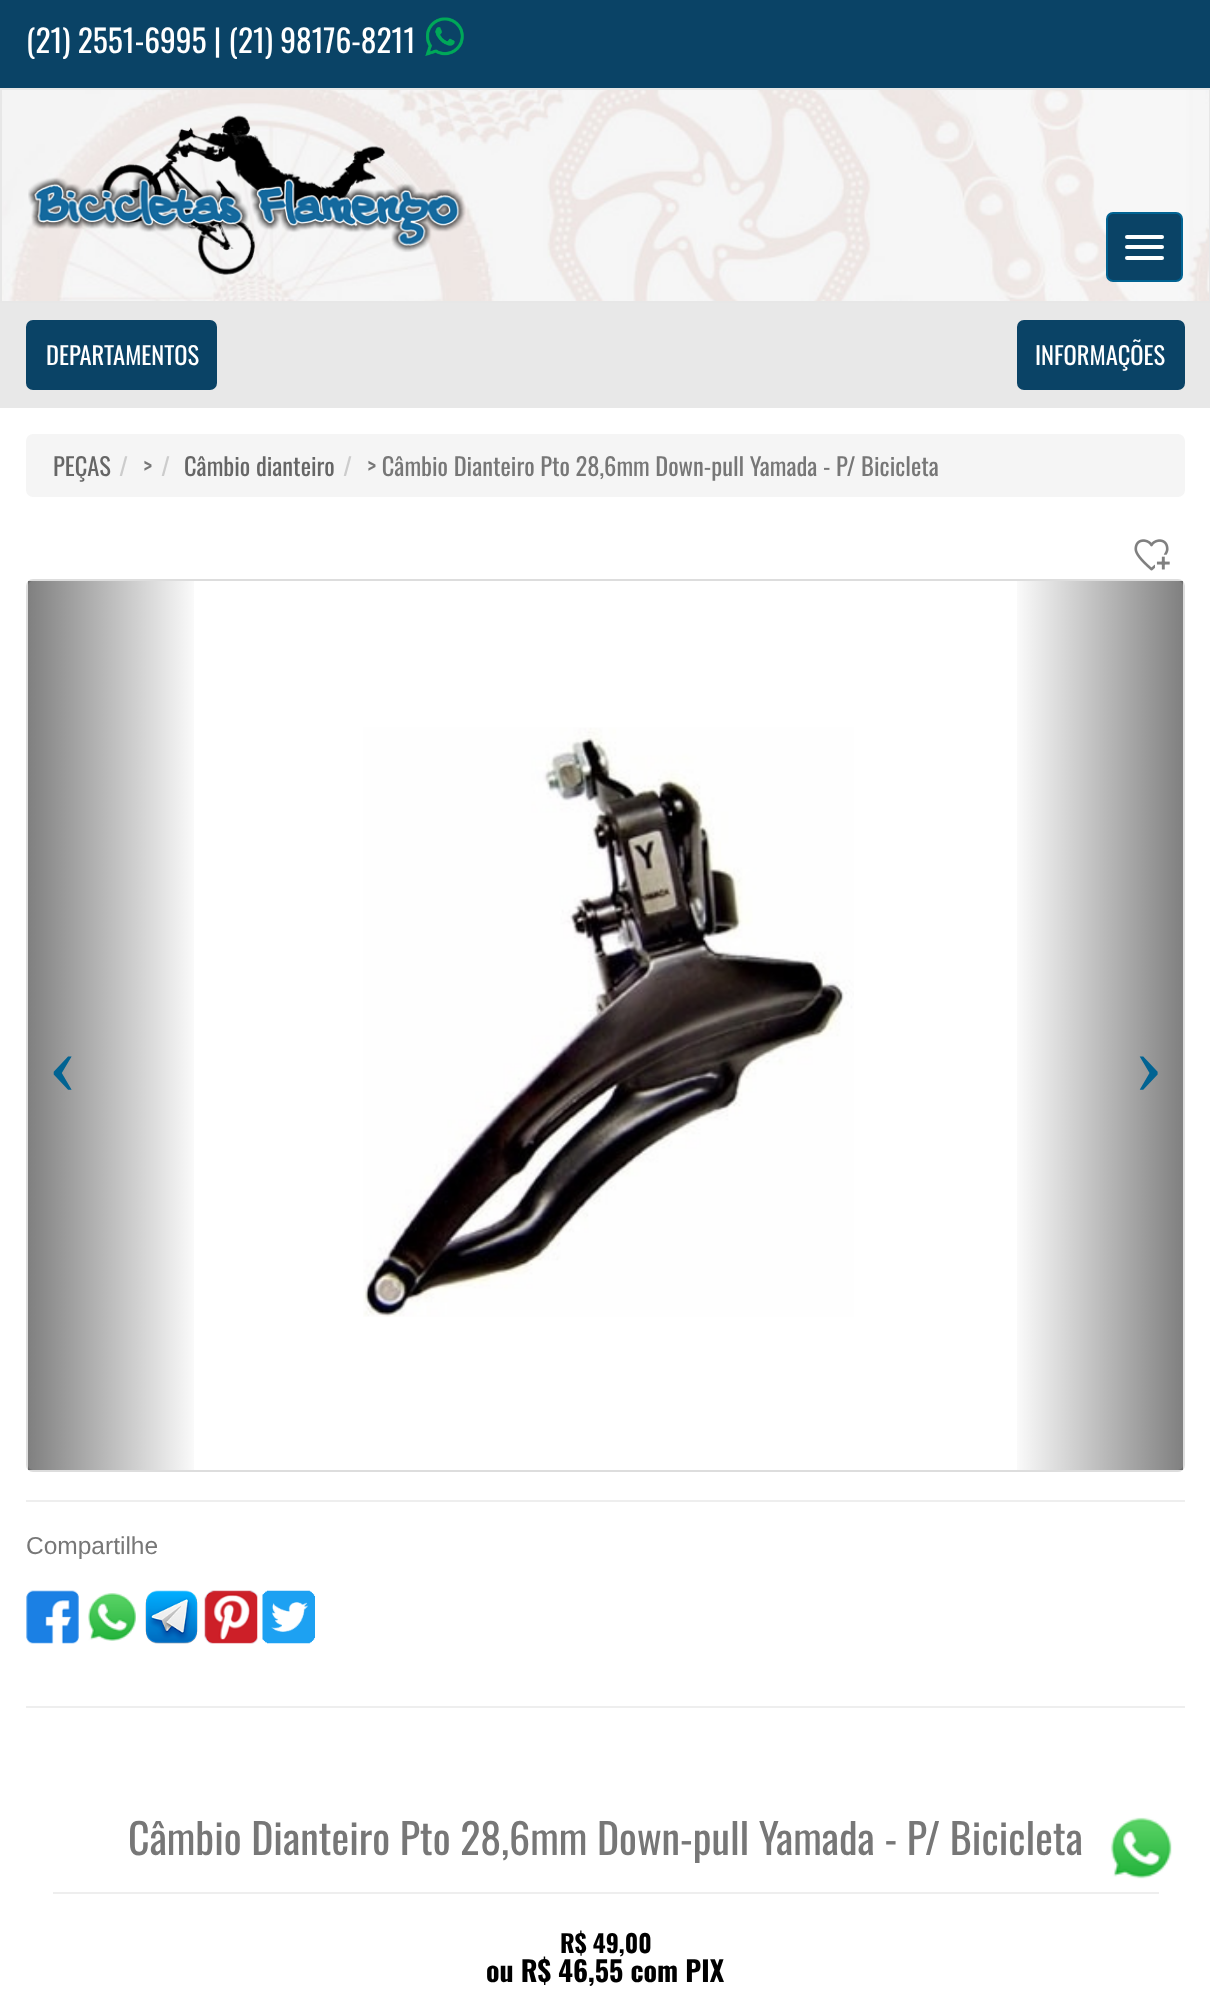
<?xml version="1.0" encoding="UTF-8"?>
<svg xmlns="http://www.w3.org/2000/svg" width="1210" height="1991">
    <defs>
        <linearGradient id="g1" gradientUnits="userSpaceOnUse" x1="28" y1="1026" x2="201" y2="1026"><stop offset="0" stop-color="#000000" stop-opacity="0.5"/><stop offset="1" stop-color="#000000" stop-opacity="0"/></linearGradient>
        <linearGradient id="g2" gradientUnits="userSpaceOnUse" x1="1010" y1="1026" x2="1183" y2="1026"><stop offset="0" stop-color="#000000" stop-opacity="0"/><stop offset="1" stop-color="#000000" stop-opacity="0.5"/></linearGradient>
    </defs>
    <rect width="100%" height="100%" fill="#FFFFFF"/>
    <rect x="0" y="0" width="1210" height="88" fill="#0A4366"/>
    <text x="26" y="53" font-family="Oswald" font-size="31.5" fill="#FFFFFF">(21) 2551-6995 | (21) 98176-8211</text>
    <image x="425" y="17" width="39" height="39" href="img_01.png"/>
    <image x="2" y="90" width="1207" height="211" href="img_02.png"/>
    <rect x="1" y="89" width="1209" height="213" fill="none" stroke="#E7E7E7" stroke-width="2"/>
    <image x="28" y="115" width="438" height="160" href="img_03.png"/>
    <rect x="1107" y="213" width="75" height="68" rx="6" fill="#0A4366" stroke="#016392" stroke-width="2"/>
    <rect x="1125" y="235" width="39" height="4" rx="2" fill="#FFFFFF"/>
    <rect x="1125" y="245" width="39" height="4" rx="2" fill="#FFFFFF"/>
    <rect x="1125" y="256" width="39" height="4" rx="2" fill="#FFFFFF"/>
    <rect x="0" y="303" width="1210" height="105" fill="#E8E8E8"/>
    <rect x="27" y="321" width="189" height="68" rx="6" fill="#0A4366" stroke="#0A4366" stroke-width="2"/>
    <text x="46" y="365" font-family="Oswald" font-size="24.5" fill="#FFFFFF">DEPARTAMENTOS</text>
    <rect x="1018" y="321" width="166" height="68" rx="6" fill="#0A4366" stroke="#0A4366" stroke-width="2"/>
    <text x="1035" y="365" font-family="Oswald" font-size="24.5" fill="#FFFFFF">INFORMAÇÕES</text>
    <rect x="26" y="434" width="1159" height="63" rx="7" fill="#F5F5F5"/>
    <text x="53" y="476" font-family="Oswald" font-size="24.5" fill="#666666">PEÇAS</text>
    <text x="119" y="476" font-family="Oswald" font-size="24.5" fill="#CCCCCC">/</text>
    <text x="143" y="476" font-family="Oswald" font-size="24.5" fill="#777777">&gt;</text>
    <text x="161" y="476" font-family="Oswald" font-size="24.5" fill="#CCCCCC">/</text>
    <text x="184" y="476" font-family="Oswald" font-size="24.5" fill="#666666">Câmbio dianteiro</text>
    <text x="343" y="476" font-family="Oswald" font-size="24.5" fill="#CCCCCC">/</text>
    <text x="367" y="476" font-family="Oswald" font-size="24.5" fill="#777777">&gt; Câmbio Dianteiro Pto 28,6mm Down-pull Yamada - P/ Bicicleta</text>
    <image x="1134" y="539" width="36" height="32" href="img_04.png"/>
    <rect x="27" y="580" width="1157" height="891" rx="6" fill="none" stroke="#DDDDDD" stroke-width="2"/>
    <rect x="28" y="581" width="166" height="889" fill="url(#g1)"/>
    <text x="48" y="1093" font-family="Liberation Serif" font-size="88" fill="#016392">‹</text>
    <image x="363" y="727" width="491" height="590" href="img_05.png"/>
    <rect x="1017" y="581" width="166" height="889" fill="url(#g2)"/>
    <text x="1134" y="1093" font-family="Liberation Serif" font-size="88" fill="#016392">›</text>
    <rect x="26" y="1500" width="1159" height="2" fill="#EEEEEE"/>
    <text x="26" y="1554" font-family="Liberation Sans" font-size="24.5" fill="#777777">Compartilhe</text>
    <image x="26" y="1590" width="53" height="54" href="img_06.png"/>
    <image x="88" y="1593" width="48" height="48" href="img_07.png"/>
    <image x="145" y="1590" width="53" height="54" href="img_08.png"/>
    <image x="204" y="1590" width="54" height="54" href="img_09.png"/>
    <image x="262" y="1590" width="53" height="54" href="img_10.png"/>
    <rect x="26" y="1706" width="1159" height="2" fill="#EEEEEE"/>
    <rect x="53" y="1892" width="1106" height="2" fill="#EEEEEE"/>
    <text x="128" y="1855" font-family="Oswald" font-size="42" fill="#777777">Câmbio Dianteiro Pto 28,6mm Down-pull Yamada - P/ Bicicleta</text>
    <text x="560" y="1953" font-family="Oswald" font-size="24.5" font-weight="700" fill="#000000">R$ 49,00</text>
    <text x="486" y="1982" font-family="Oswald" font-size="28" font-weight="700" fill="#000000">ou R$ 46,55 com PIX</text>
    <image x="1110" y="1817" width="62" height="62" href="img_11.png"/>
</svg>
